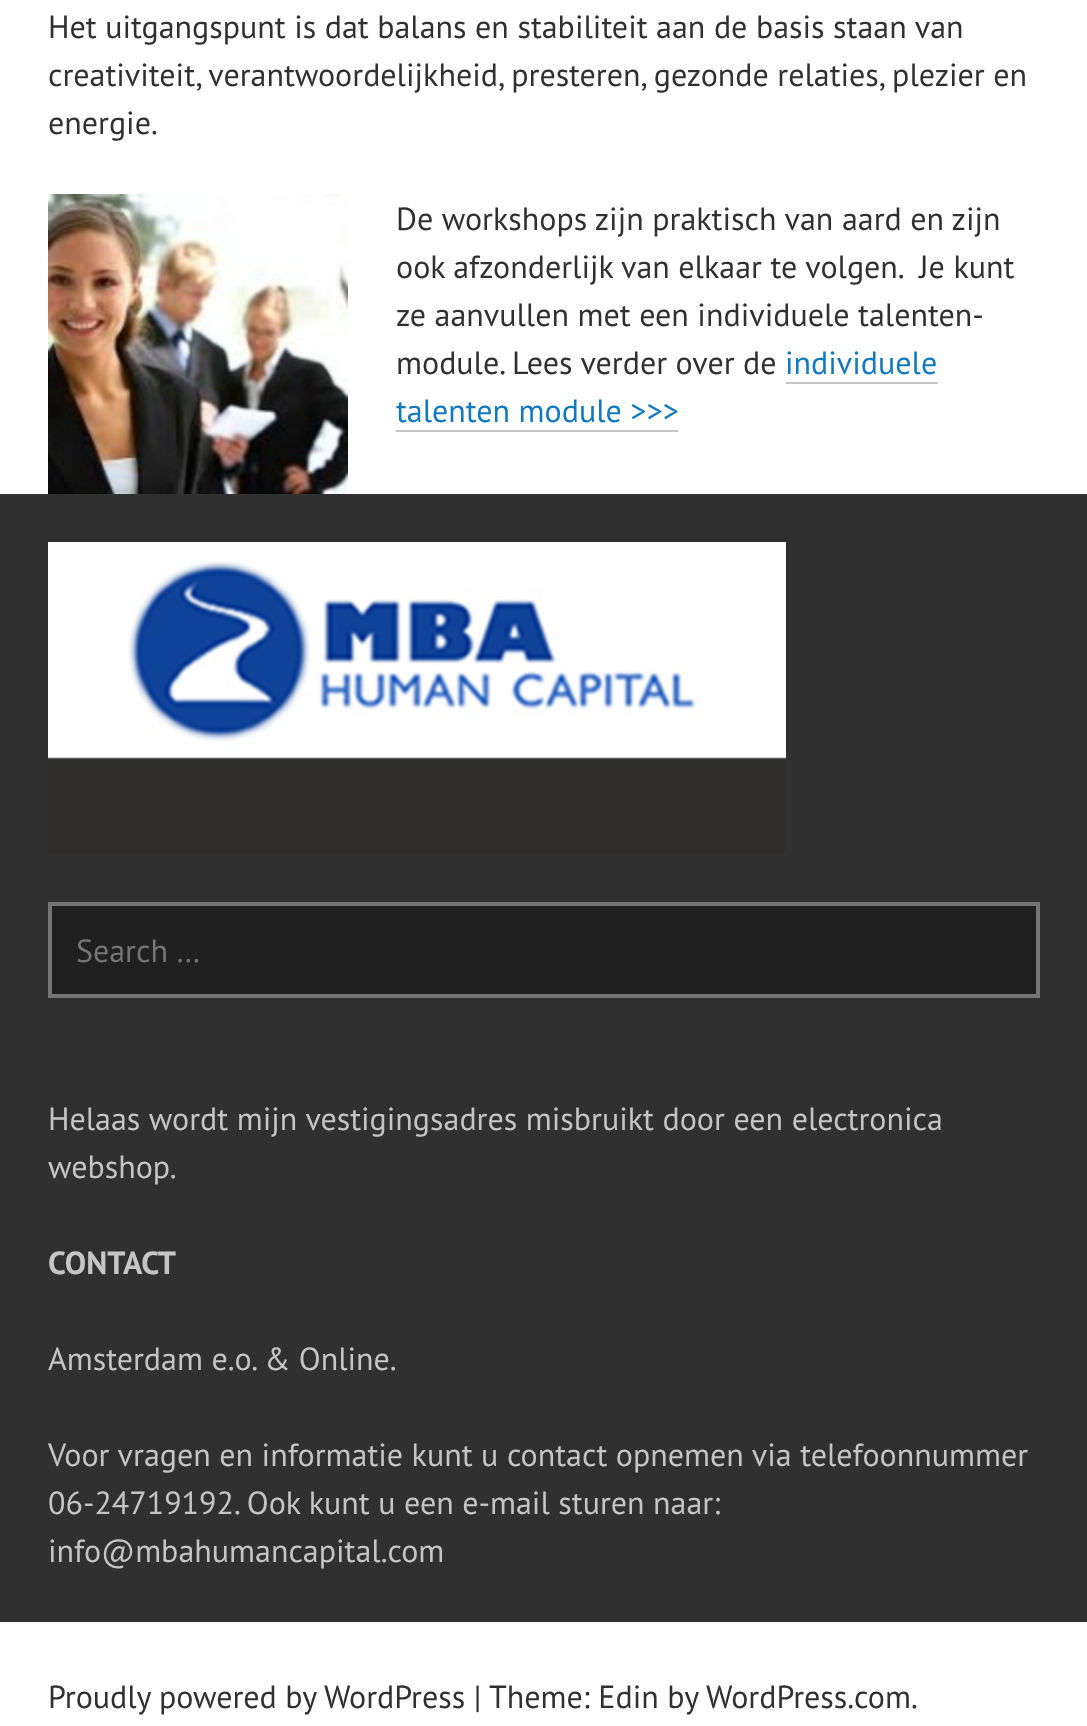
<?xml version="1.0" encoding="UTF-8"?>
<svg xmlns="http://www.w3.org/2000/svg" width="1087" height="1726">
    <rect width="100%" height="100%" fill="#FFFFFF"/>
    <text font-family="PT Sans" font-size="32" fill="#303030">
        <tspan x="48" y="38">Het uitgangspunt is dat balans en stabiliteit aan de basis staan van</tspan>
        <tspan x="48" y="86">creativiteit, verantwoordelijkheid, presteren, gezonde relaties, plezier en</tspan>
        <tspan x="48" y="134">energie.</tspan>
    </text>
    <image x="48" y="194" width="300" height="300" href="img_01.png"/>
    <text font-family="PT Sans" font-size="32" fill="#303030" xml:space="preserve"><tspan x="396" y="230">De workshops zijn praktisch van aard en zijn</tspan><tspan x="396" y="278">ook afzonderlijk van elkaar te volgen.  Je kunt</tspan><tspan x="396" y="326">ze aanvullen met een individuele talenten-</tspan><tspan x="396" y="374">module. Lees verder over de</tspan></text>
    <text x="785" y="374" font-family="PT Sans" font-size="32" fill="#1279BE">individuele</text>
    <rect x="786" y="382" width="152" height="2" fill="#C5C5C5"/>
    <text x="396" y="422" font-family="PT Sans" font-size="32" fill="#1279BE">talenten module &gt;&gt;&gt;</text>
    <rect x="396" y="430" width="282" height="2" fill="#C5C5C5"/>
    <rect x="0" y="494" width="1087" height="1128" fill="#303030"/>
    <image x="48" y="542" width="738" height="312" href="img_02.png"/>
    <rect x="50" y="904" width="988" height="92" fill="#202020" stroke="#757575" stroke-width="4"/>
    <text x="76" y="962" font-family="PT Sans" font-size="32" fill="#757575">Search …</text>
    <text font-family="PT Sans" font-size="32" fill="#C5C5C5">
        <tspan x="48" y="1130">Helaas wordt mijn vestigingsadres misbruikt door een electronica</tspan>
        <tspan x="48" y="1178">webshop.</tspan>
    </text>
    <text x="48" y="1274" font-family="PT Sans" font-size="32" font-weight="700" fill="#C5C5C5">CONTACT</text>
    <text x="48" y="1370" font-family="PT Sans" font-size="32" fill="#C5C5C5">Amsterdam e.o. &amp; Online.</text>
    <text font-family="PT Sans" font-size="32" fill="#C5C5C5">
        <tspan x="48" y="1466">Voor vragen en informatie kunt u contact opnemen via telefoonnummer</tspan>
        <tspan x="48" y="1514">06-24719192. Ook kunt u een e-mail sturen naar:</tspan>
        <tspan x="48" y="1562">info@mbahumancapital.com</tspan>
    </text>
    <rect x="0" y="1622" width="1087" height="2" fill="#F8F8F8"/>
    <text x="48" y="1708" font-family="PT Sans" font-size="32" fill="#303030">Proudly powered by WordPress |</text>
    <text x="489" y="1708" font-family="PT Sans" font-size="32" fill="#303030">Theme: Edin by</text>
    <text x="706" y="1708" font-family="PT Sans" font-size="32" fill="#303030">WordPress.com.</text>
</svg>
